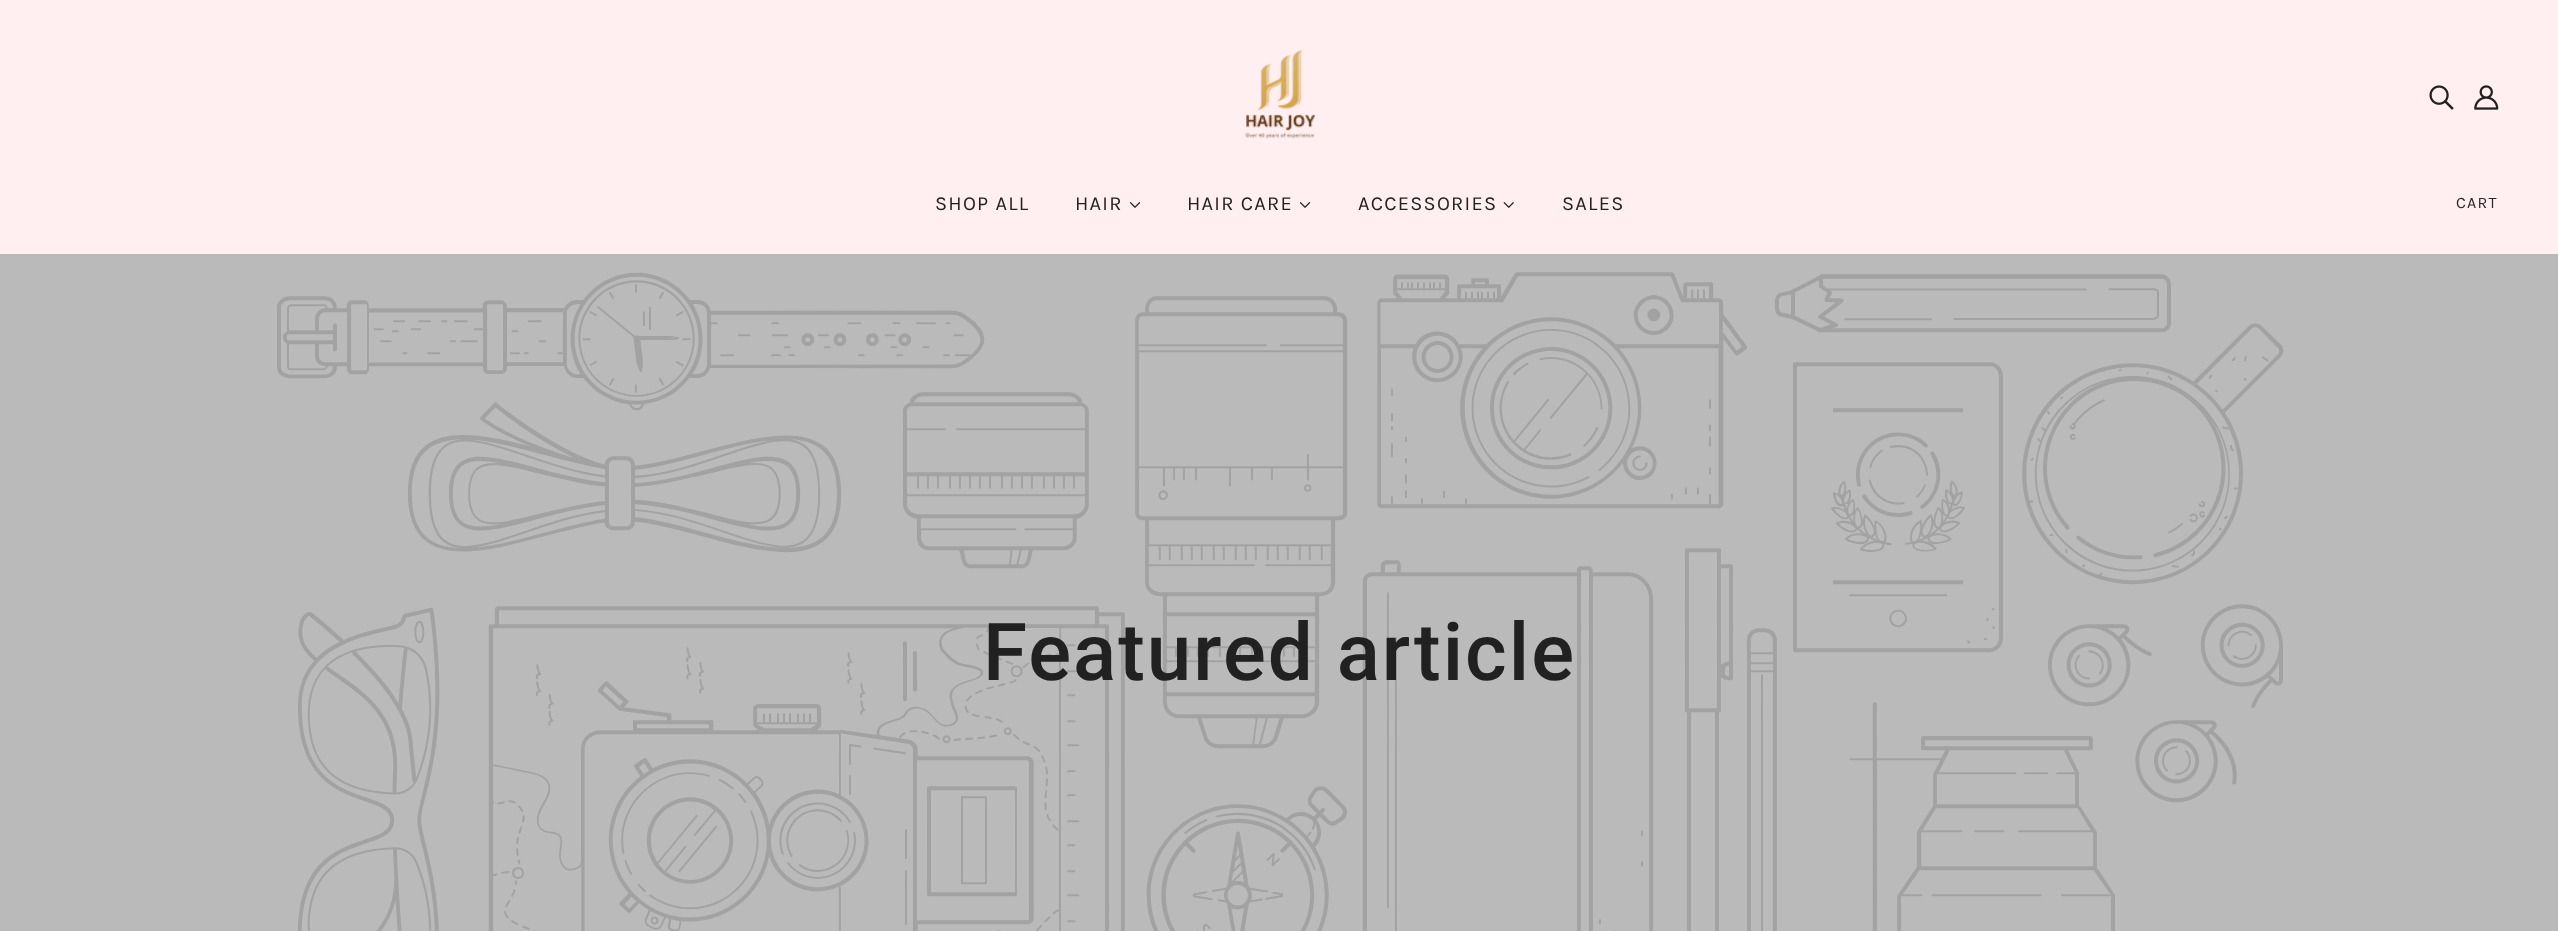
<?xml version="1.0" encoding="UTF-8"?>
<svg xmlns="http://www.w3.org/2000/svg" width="2558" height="931">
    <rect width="100%" height="100%" fill="#BABABA"/>
    <rect x="0" y="0" width="2558" height="254" fill="#FFEFF0"/>
    <image x="1245" y="50" width="71" height="89" href="img_01.png"/>
    <image x="2429" y="85" width="25" height="25" href="img_02.png"/>
    <image x="2474" y="85" width="25" height="25" href="img_03.png"/>
    <text x="935" y="210" font-family="Karla" font-size="20" letter-spacing="1.25" fill="#212121">SHOP ALL</text>
    <text x="1075" y="210" font-family="Karla" font-size="20" letter-spacing="1.25" fill="#212121">HAIR</text>
    <image x="1129" y="202" width="12" height="6" href="img_04.png"/>
    <text x="1187" y="210" font-family="Karla" font-size="20" letter-spacing="1.25" fill="#212121">HAIR CARE</text>
    <image x="1299" y="202" width="12" height="6" href="img_04.png"/>
    <text x="1358" y="210" font-family="Karla" font-size="20" letter-spacing="1.25" fill="#212121">ACCESSORIES</text>
    <image x="1503" y="202" width="11" height="6" href="img_05.png"/>
    <text x="1562" y="210" font-family="Karla" font-size="20" letter-spacing="1.25" fill="#212121">SALES</text>
    <text x="2456" y="208" font-family="Karla" font-size="16" letter-spacing="1.25" fill="#272727">CART</text>
    <image x="277" y="272" width="2007" height="659" href="img_06.png"/>
    <text x="983" y="680" font-family="Roboto" font-size="80" font-weight="500" letter-spacing="2" fill="#212121">Featured article</text>
</svg>
